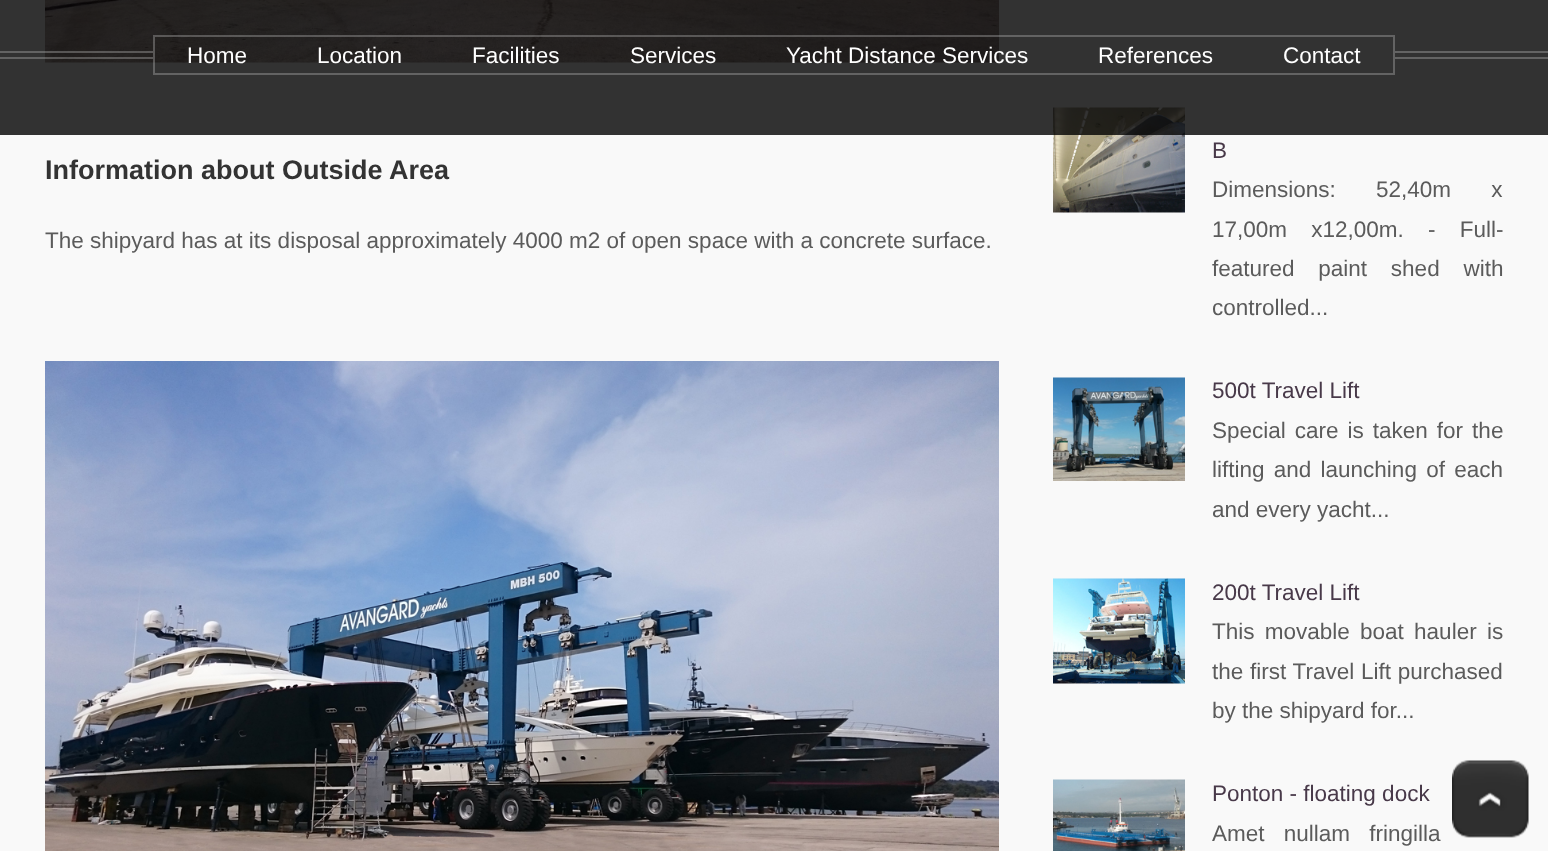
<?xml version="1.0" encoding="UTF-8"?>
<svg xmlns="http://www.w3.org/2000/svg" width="1548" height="851">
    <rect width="100%" height="100%" fill="#F9F9F9"/>
    <image x="45" y="0" width="954" height="63" href="img_01.png"/>
    <image x="1053" y="107" width="132" height="106" href="img_03.png"/>
    <rect x="0" y="0" width="1548" height="135" fill="#000000" fill-opacity="0.8"/>
    <rect x="154" y="36" width="1240" height="38" fill="none" stroke="#C0C0C0" stroke-opacity="0.35" stroke-width="2"/>
    <rect x="0" y="51" width="153" height="2" fill="#C0C0C0" fill-opacity="0.35"/>
    <rect x="0" y="57" width="153" height="2" fill="#C0C0C0" fill-opacity="0.35"/>
    <text x="187" y="63" font-family="Liberation Sans" font-size="22.5" fill="#FFFFFF">Home</text>
    <text x="317" y="63" font-family="Liberation Sans" font-size="22.5" fill="#FFFFFF">Location</text>
    <text x="472" y="63" font-family="Liberation Sans" font-size="22.5" fill="#FFFFFF">Facilities</text>
    <text x="630" y="63" font-family="Liberation Sans" font-size="22.5" fill="#FFFFFF">Services</text>
    <text x="786" y="63" font-family="Liberation Sans" font-size="22.5" fill="#FFFFFF">Yacht Distance Services</text>
    <text x="1098" y="63" font-family="Liberation Sans" font-size="22.5" fill="#FFFFFF">References</text>
    <text x="1283" y="63" font-family="Liberation Sans" font-size="22.5" fill="#FFFFFF">Contact</text>
    <rect x="1395" y="51" width="153" height="2" fill="#646464"/>
    <rect x="1395" y="57" width="153" height="2" fill="#646464"/>
    <text x="45" y="179" font-family="Liberation Sans" font-size="27" font-weight="700" fill="#333333">Information about Outside Area</text>
    <text x="45" y="248" font-family="Liberation Sans" font-size="22.5" fill="#5B5B5B">The shipyard has at its disposal approximately 4000 m2 of open space with a concrete surface.</text>
    <image x="45" y="361" width="954" height="490" href="img_02.png"/>
    <text x="1212" y="158" font-family="Liberation Sans" font-size="22.5" fill="#483949">B</text>
    <text font-family="Liberation Sans" font-size="22.5" fill="#5B5B5B">
        <tspan x="1212" y="197" word-spacing="34">Dimensions: 52,40m x</tspan>
        <tspan x="1212" y="237" word-spacing="18">17,00m x12,00m. - Full-</tspan>
        <tspan x="1212" y="276" word-spacing="17.5">featured paint shed with</tspan>
        <tspan x="1212" y="315">controlled...</tspan>
    </text>
    <image x="1053" y="377" width="132" height="104" href="img_04.png"/>
    <text x="1212" y="398" font-family="Liberation Sans" font-size="22.5" fill="#483949">500t Travel Lift</text>
    <text font-family="Liberation Sans" font-size="22.5" fill="#5B5B5B">
        <tspan x="1212" y="438" word-spacing="2.75">Special care is taken for the</tspan>
        <tspan x="1212" y="477" word-spacing="3">lifting and launching of each</tspan>
        <tspan x="1212" y="517">and every yacht...</tspan>
    </text>
    <image x="1053" y="578" width="132" height="106" href="img_05.png"/>
    <text x="1212" y="600" font-family="Liberation Sans" font-size="22.5" fill="#483949">200t Travel Lift</text>
    <text font-family="Liberation Sans" font-size="22.5" fill="#5B5B5B">
        <tspan x="1212" y="639" word-spacing="4">This movable boat hauler is</tspan>
        <tspan x="1212" y="679" word-spacing="0.5">the first Travel Lift purchased</tspan>
        <tspan x="1212" y="718">by the shipyard for...</tspan>
    </text>
    <image x="1053" y="779" width="132" height="72" href="img_06.png"/>
    <text x="1212" y="801" font-family="Liberation Sans" font-size="22.5" fill="#483949">Ponton - floating dock</text>
    <text x="1212" y="841" word-spacing="13" font-family="Liberation Sans" font-size="22.5" fill="#5B5B5B">Amet nullam fringilla</text>
    <image x="1452" y="760" width="77" height="78" href="img_07.png"/>
</svg>
